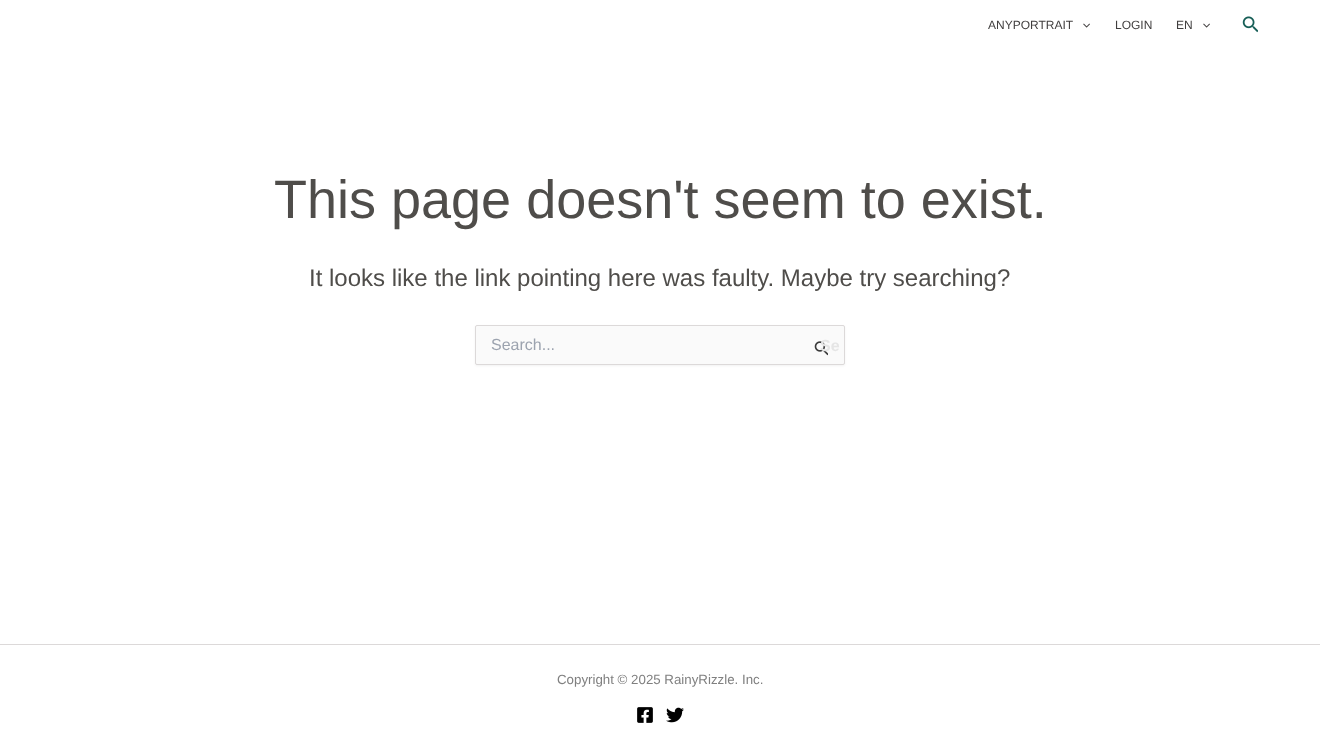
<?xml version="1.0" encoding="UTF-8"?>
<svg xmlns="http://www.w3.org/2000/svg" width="1320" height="748">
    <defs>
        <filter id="blur1" x="-50%" y="-200%" width="200%" height="500%"><feGaussianBlur stdDeviation="1"/></filter>
    </defs>
    <rect width="100%" height="100%" fill="#FFFFFF"/>
    <text x="988" y="29" font-family="Liberation Sans" font-size="12" fill="#403E3E">ANYPORTRAIT</text>
    <image x="1083" y="23" width="7" height="5" href="img_01.png"/>
    <text x="1115" y="29" font-family="Liberation Sans" font-size="12" fill="#403E3E">LOGIN</text>
    <text x="1176" y="29" font-family="Liberation Sans" font-size="12" fill="#403E3E">EN</text>
    <image x="1203" y="23" width="7" height="5" href="img_01.png"/>
    <image x="1242" y="16" width="16" height="17" href="img_02.png"/>
    <text x="274" y="218" font-family="Liberation Sans" font-size="54" fill="#4F4D4A">This page doesn't seem to exist.</text>
    <text x="309" y="286" font-family="Liberation Sans" font-size="24" fill="#4F4D4A">It looks like the link pointing here was faulty. Maybe try searching?</text>
    <rect x="475" y="326" width="370" height="40" rx="2" fill="#000000" fill-opacity="0.05" filter="url(#blur1)"/>
    <rect x="475.5" y="325.5" width="369" height="39" rx="1.5" fill="#FAFAFA" stroke="#DCD9D9"/>
    <text x="491" y="350" font-family="Liberation Sans" font-size="16" fill="#9CA3AF">Search...</text>
    <image x="814" y="341" width="14" height="15" href="img_03.png"/>
    <text x="820" y="351" font-family="Liberation Sans" font-size="16" font-weight="700" fill="#E5E5E5">Se</text>
    <rect x="0" y="644" width="1320" height="1" fill="#DCD9D9"/>
    <text x="557" y="684" font-family="Liberation Sans" font-size="13.3" fill="#808080">Copyright © 2025 RainyRizzle. Inc.</text>
    <image x="637" y="707" width="16" height="16" href="img_04.png"/>
    <image x="666" y="707" width="18" height="16" href="img_05.png"/>
</svg>
